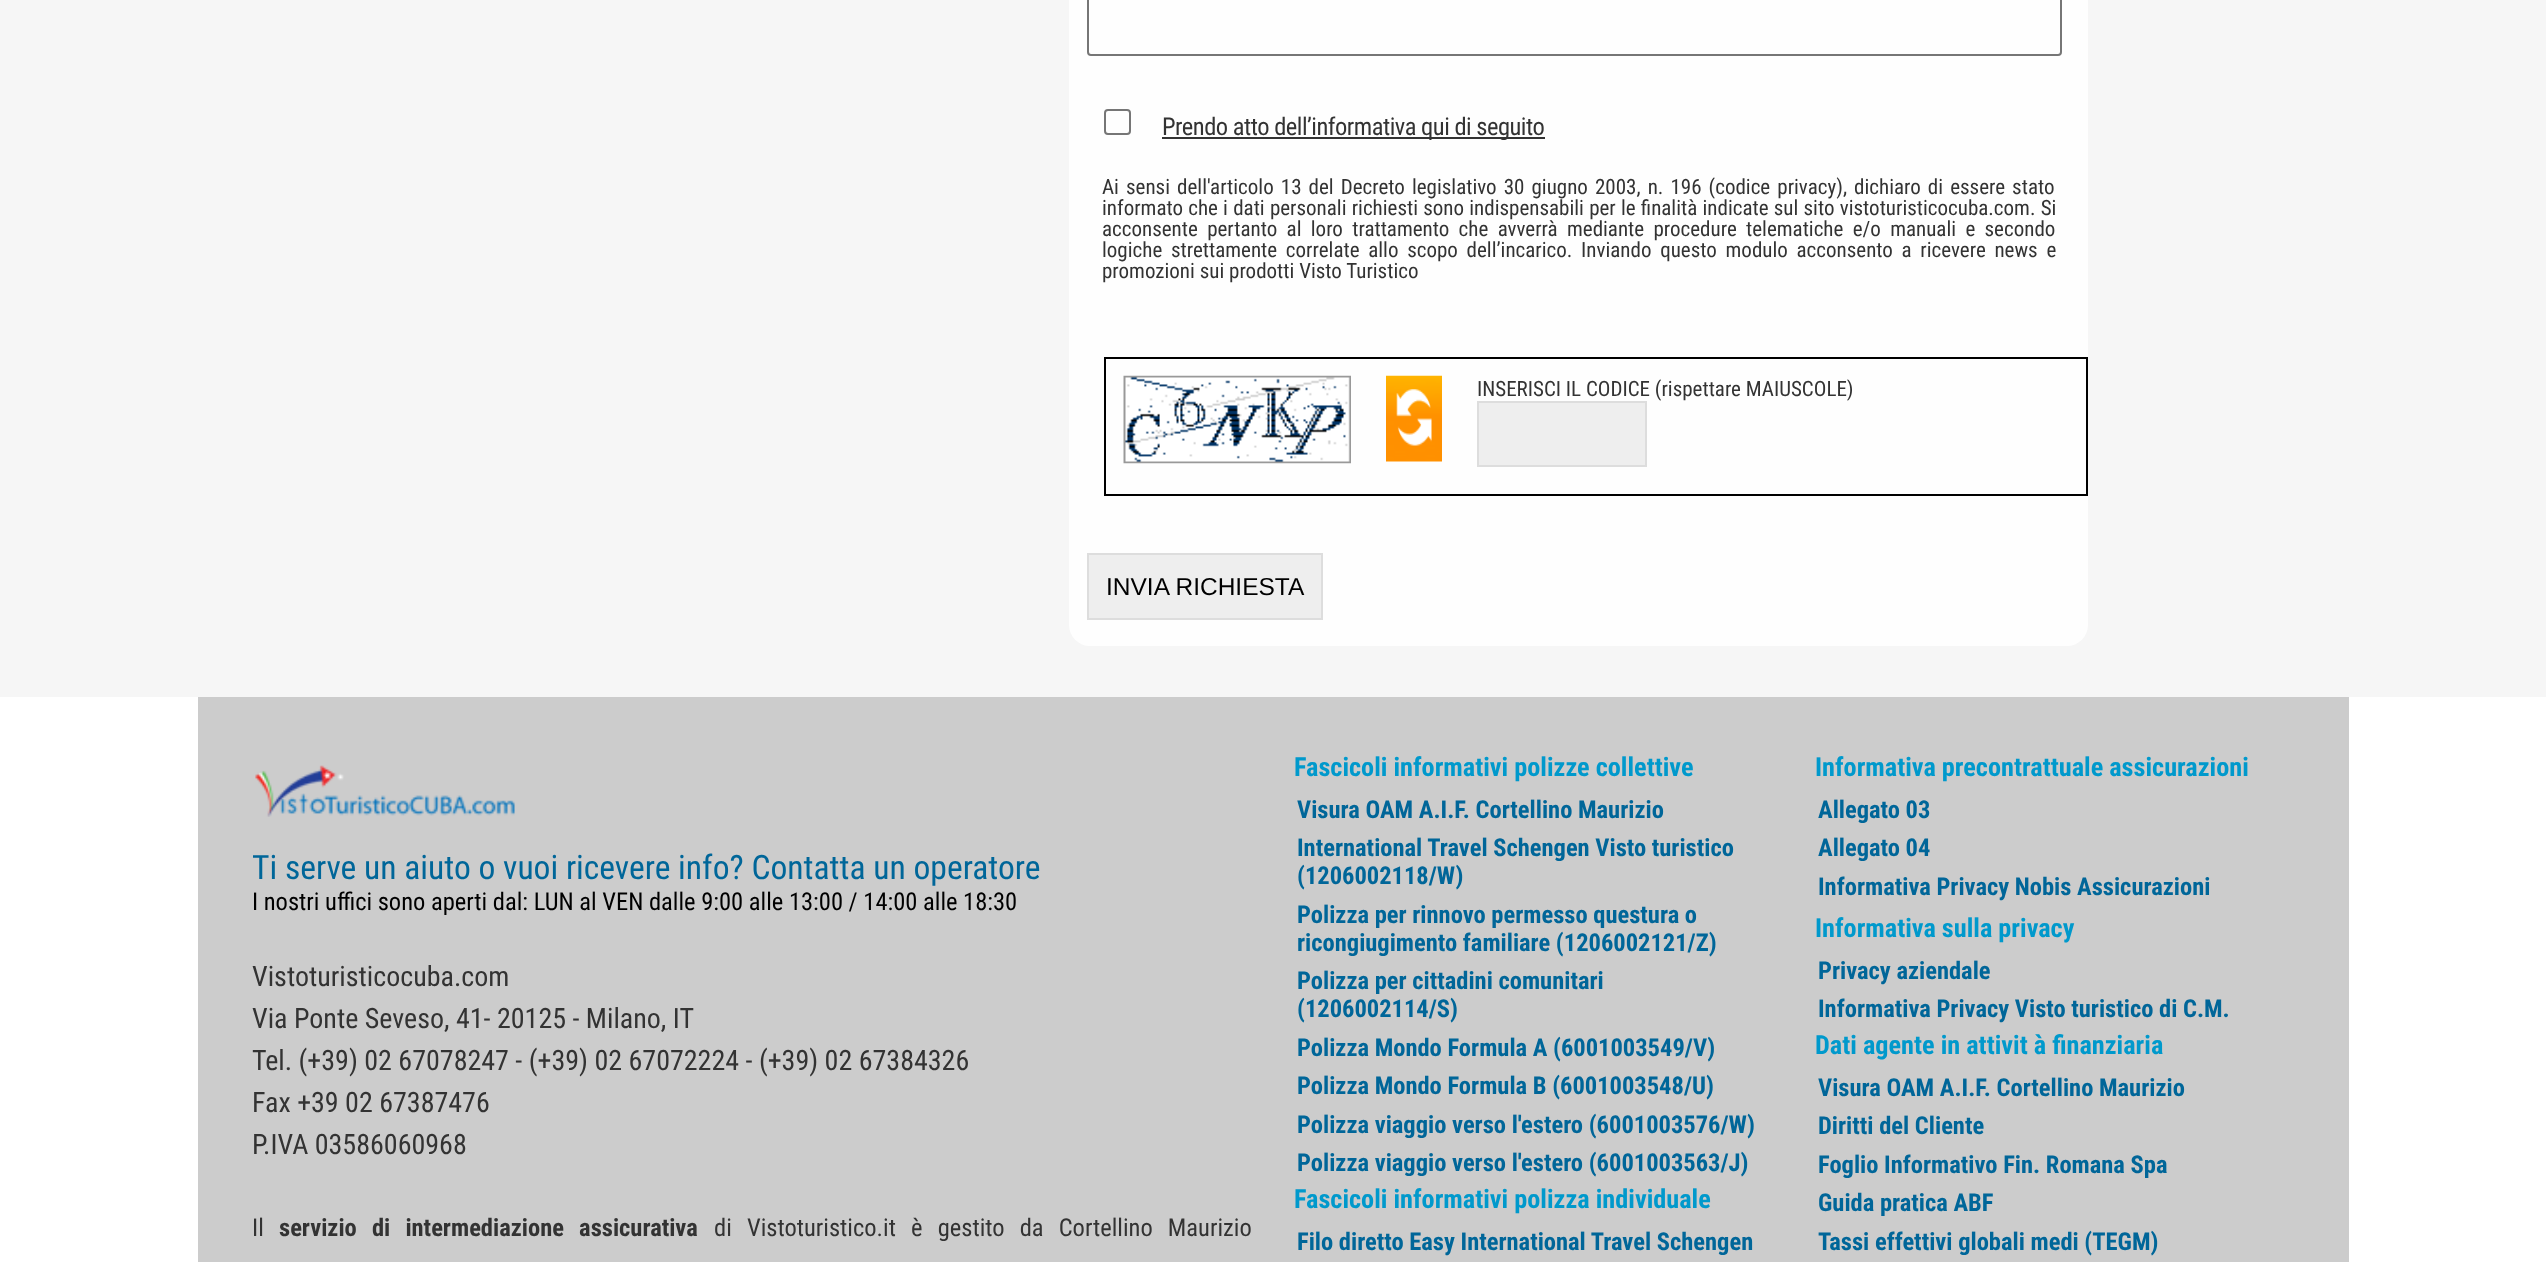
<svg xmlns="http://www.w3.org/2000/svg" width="2546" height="1262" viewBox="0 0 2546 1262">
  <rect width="100%" height="100%" fill="#ffffff"/>
  <rect x="0" y="0" width="2546" height="697" fill="#f6f6f6"/>
  <rect x="1069" y="-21" width="1019" height="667" rx="21" fill="#fefefe"/>
  <rect x="1088" y="-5" width="973" height="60" rx="3" fill="none" stroke="#767676" stroke-width="2"/>
  <rect x="1105" y="110" width="25" height="24" rx="3" fill="none" stroke="#767676" stroke-width="2"/>
  <rect x="1162" y="137" width="383" height="2" fill="#333333"/>
  <text x="1162" y="135" font-family="Roboto Condensed" font-size="24.5" letter-spacing="-0.5" fill="#333333">Prendo atto dell’informativa qui di seguito</text>
  <text x="1102" y="194" word-spacing="2.25" font-family="Roboto Condensed" font-size="21" fill="#333333">Ai sensi dell'articolo 13 del Decreto legislativo 30 giugno 2003, n. 196 (codice privacy), dichiaro di essere stato</text>
  <text x="1102" y="215" word-spacing="0.4" font-family="Roboto Condensed" font-size="21" fill="#333333">informato che i dati personali richiesti sono indispensabili per le finalità indicate sul sito vistoturisticocuba.com. Si</text>
  <text x="1102" y="236" word-spacing="4.5" font-family="Roboto Condensed" font-size="21" fill="#333333">acconsente pertanto al loro trattamento che avverrà mediante procedure telematiche e/o manuali e secondo</text>
  <text x="1102" y="257" word-spacing="3.9" font-family="Roboto Condensed" font-size="21" fill="#333333">logiche strettamente correlate allo scopo dell’incarico. Inviando questo modulo acconsento a ricevere news e</text>
  <text x="1102" y="278" font-family="Roboto Condensed" font-size="21" fill="#333333">promozioni sui prodotti Visto Turistico</text>
  <rect x="1104" y="357" width="984" height="2" fill="#000000"/>
  <rect x="2086" y="357" width="2" height="138" fill="#000000"/>
  <rect x="1104" y="494" width="984" height="2" fill="#000000"/>
  <rect x="1104" y="357" width="2" height="138" fill="#000000"/>
  <image x="1123" y="375" width="228" height="89" href="img1.png"/>
  <image x="1386" y="375" width="56" height="87" href="img2.png"/>
  <text x="1477" y="396" font-family="Roboto Condensed" font-size="21" fill="#333333">INSERISCI IL CODICE (rispettare MAIUSCOLE)</text>
  <rect x="1478" y="402" width="168" height="64" fill="#eeeeee" stroke="#dddddd" stroke-width="2"/>
  <rect x="1088" y="554" width="234" height="65" fill="#eeeeee" stroke="#dddddd" stroke-width="2"/>
  <text x="1106" y="595" font-family="Liberation Sans" font-size="24.5" fill="#000000">INVIA RICHIESTA</text>
  <rect x="198" y="697" width="2151" height="565" fill="#cccccc"/>
  <image x="255" y="765" width="260" height="52" href="img3.png"/>
  <text x="252" y="879" font-family="Roboto Condensed" font-size="33.6" fill="#006699">Ti serve un aiuto o vuoi ricevere info? Contatta un operatore</text>
  <text x="252" y="910" font-family="Roboto Condensed" font-size="24.5" fill="#000000">I nostri uffici sono aperti dal: LUN al VEN dalle 9:00 alle 13:00 / 14:00 alle 18:30</text>
  <text x="252" y="986" font-family="Roboto Condensed" font-size="28" fill="#333333">Vistoturisticocuba.com</text>
  <text x="252" y="1028" font-family="Roboto Condensed" font-size="28" fill="#333333">Via Ponte Seveso, 41- 20125 - Milano, IT</text>
  <text x="252" y="1070" font-family="Roboto Condensed" font-size="28" fill="#333333">Tel. (+39) 02 67078247 - (+39) 02 67072224 - (+39) 02 67384326</text>
  <text x="252" y="1112" font-family="Roboto Condensed" font-size="28" fill="#333333">Fax +39 02 67387476</text>
  <text x="252" y="1154" font-family="Roboto Condensed" font-size="28" fill="#333333">P.IVA 03586060968</text>
  <text x="252" y="1236" font-family="Roboto Condensed" font-size="24.5" fill="#333333">Il</text>
  <text x="279" y="1236" word-spacing="9.5" font-family="Roboto Condensed" font-size="24.5" font-weight="bold" fill="#333333">servizio di intermediazione assicurativa</text>
  <text x="714" y="1236" word-spacing="9.5" font-family="Roboto Condensed" font-size="24.5" fill="#333333">di Vistoturistico.it è gestito da Cortellino Maurizio</text>
  <text x="1294" y="776" font-family="Roboto Condensed" font-size="26.25" font-weight="bold" fill="#0099cc">Fascicoli informativi polizze collettive</text>
  <text x="1297" y="818" font-family="Roboto Condensed" font-size="24.5" font-weight="bold" fill="#006699">Visura OAM A.I.F. Cortellino Maurizio</text>
  <text x="1297" y="856" font-family="Roboto Condensed" font-size="24.5" font-weight="bold" fill="#006699">International Travel Schengen Visto turistico</text>
  <text x="1297" y="884" font-family="Roboto Condensed" font-size="24.5" font-weight="bold" fill="#006699">(1206002118/W)</text>
  <text x="1297" y="923" font-family="Roboto Condensed" font-size="24.5" font-weight="bold" fill="#006699">Polizza per rinnovo permesso questura o</text>
  <text x="1297" y="951" font-family="Roboto Condensed" font-size="24.5" font-weight="bold" fill="#006699">ricongiugimento familiare (1206002121/Z)</text>
  <text x="1297" y="989" font-family="Roboto Condensed" font-size="24.5" font-weight="bold" fill="#006699">Polizza per cittadini comunitari</text>
  <text x="1297" y="1017" font-family="Roboto Condensed" font-size="24.5" font-weight="bold" fill="#006699">(1206002114/S)</text>
  <text x="1297" y="1056" font-family="Roboto Condensed" font-size="24.5" font-weight="bold" fill="#006699">Polizza Mondo Formula A (6001003549/V)</text>
  <text x="1297" y="1094" font-family="Roboto Condensed" font-size="24.5" font-weight="bold" fill="#006699">Polizza Mondo Formula B (6001003548/U)</text>
  <text x="1297" y="1133" font-family="Roboto Condensed" font-size="24.5" font-weight="bold" fill="#006699">Polizza viaggio verso l'estero (6001003576/W)</text>
  <text x="1297" y="1171" font-family="Roboto Condensed" font-size="24.5" font-weight="bold" fill="#006699">Polizza viaggio verso l'estero (6001003563/J)</text>
  <text x="1294" y="1208" font-family="Roboto Condensed" font-size="26.25" font-weight="bold" fill="#0099cc">Fascicoli informativi polizza individuale</text>
  <text x="1297" y="1250" font-family="Roboto Condensed" font-size="24.5" font-weight="bold" fill="#006699">Filo diretto Easy International Travel Schengen</text>
  <text x="1815" y="776" font-family="Roboto Condensed" font-size="26.25" font-weight="bold" fill="#0099cc">Informativa precontrattuale assicurazioni</text>
  <text x="1818" y="818" font-family="Roboto Condensed" font-size="24.5" font-weight="bold" fill="#006699">Allegato 03</text>
  <text x="1818" y="856" font-family="Roboto Condensed" font-size="24.5" font-weight="bold" fill="#006699">Allegato 04</text>
  <text x="1818" y="895" font-family="Roboto Condensed" font-size="24.5" font-weight="bold" fill="#006699">Informativa Privacy Nobis Assicurazioni</text>
  <text x="1815" y="937" font-family="Roboto Condensed" font-size="26.25" font-weight="bold" fill="#0099cc">Informativa sulla privacy</text>
  <text x="1818" y="979" font-family="Roboto Condensed" font-size="24.5" font-weight="bold" fill="#006699">Privacy aziendale</text>
  <text x="1818" y="1017" font-family="Roboto Condensed" font-size="24.5" font-weight="bold" fill="#006699">Informativa Privacy Visto turistico di C.M.</text>
  <text x="1815" y="1054" font-family="Roboto Condensed" font-size="26.25" font-weight="bold" fill="#0099cc">Dati agente in attivit à finanziaria</text>
  <text x="1818" y="1096" font-family="Roboto Condensed" font-size="24.5" font-weight="bold" fill="#006699">Visura OAM A.I.F. Cortellino Maurizio</text>
  <text x="1818" y="1134" font-family="Roboto Condensed" font-size="24.5" font-weight="bold" fill="#006699">Diritti del Cliente</text>
  <text x="1818" y="1173" font-family="Roboto Condensed" font-size="24.5" font-weight="bold" fill="#006699">Foglio Informativo Fin. Romana Spa</text>
  <text x="1818" y="1211" font-family="Roboto Condensed" font-size="24.5" font-weight="bold" fill="#006699">Guida pratica ABF</text>
  <text x="1818" y="1250" font-family="Roboto Condensed" font-size="24.5" font-weight="bold" fill="#006699">Tassi effettivi globali medi (TEGM)</text>
</svg>
